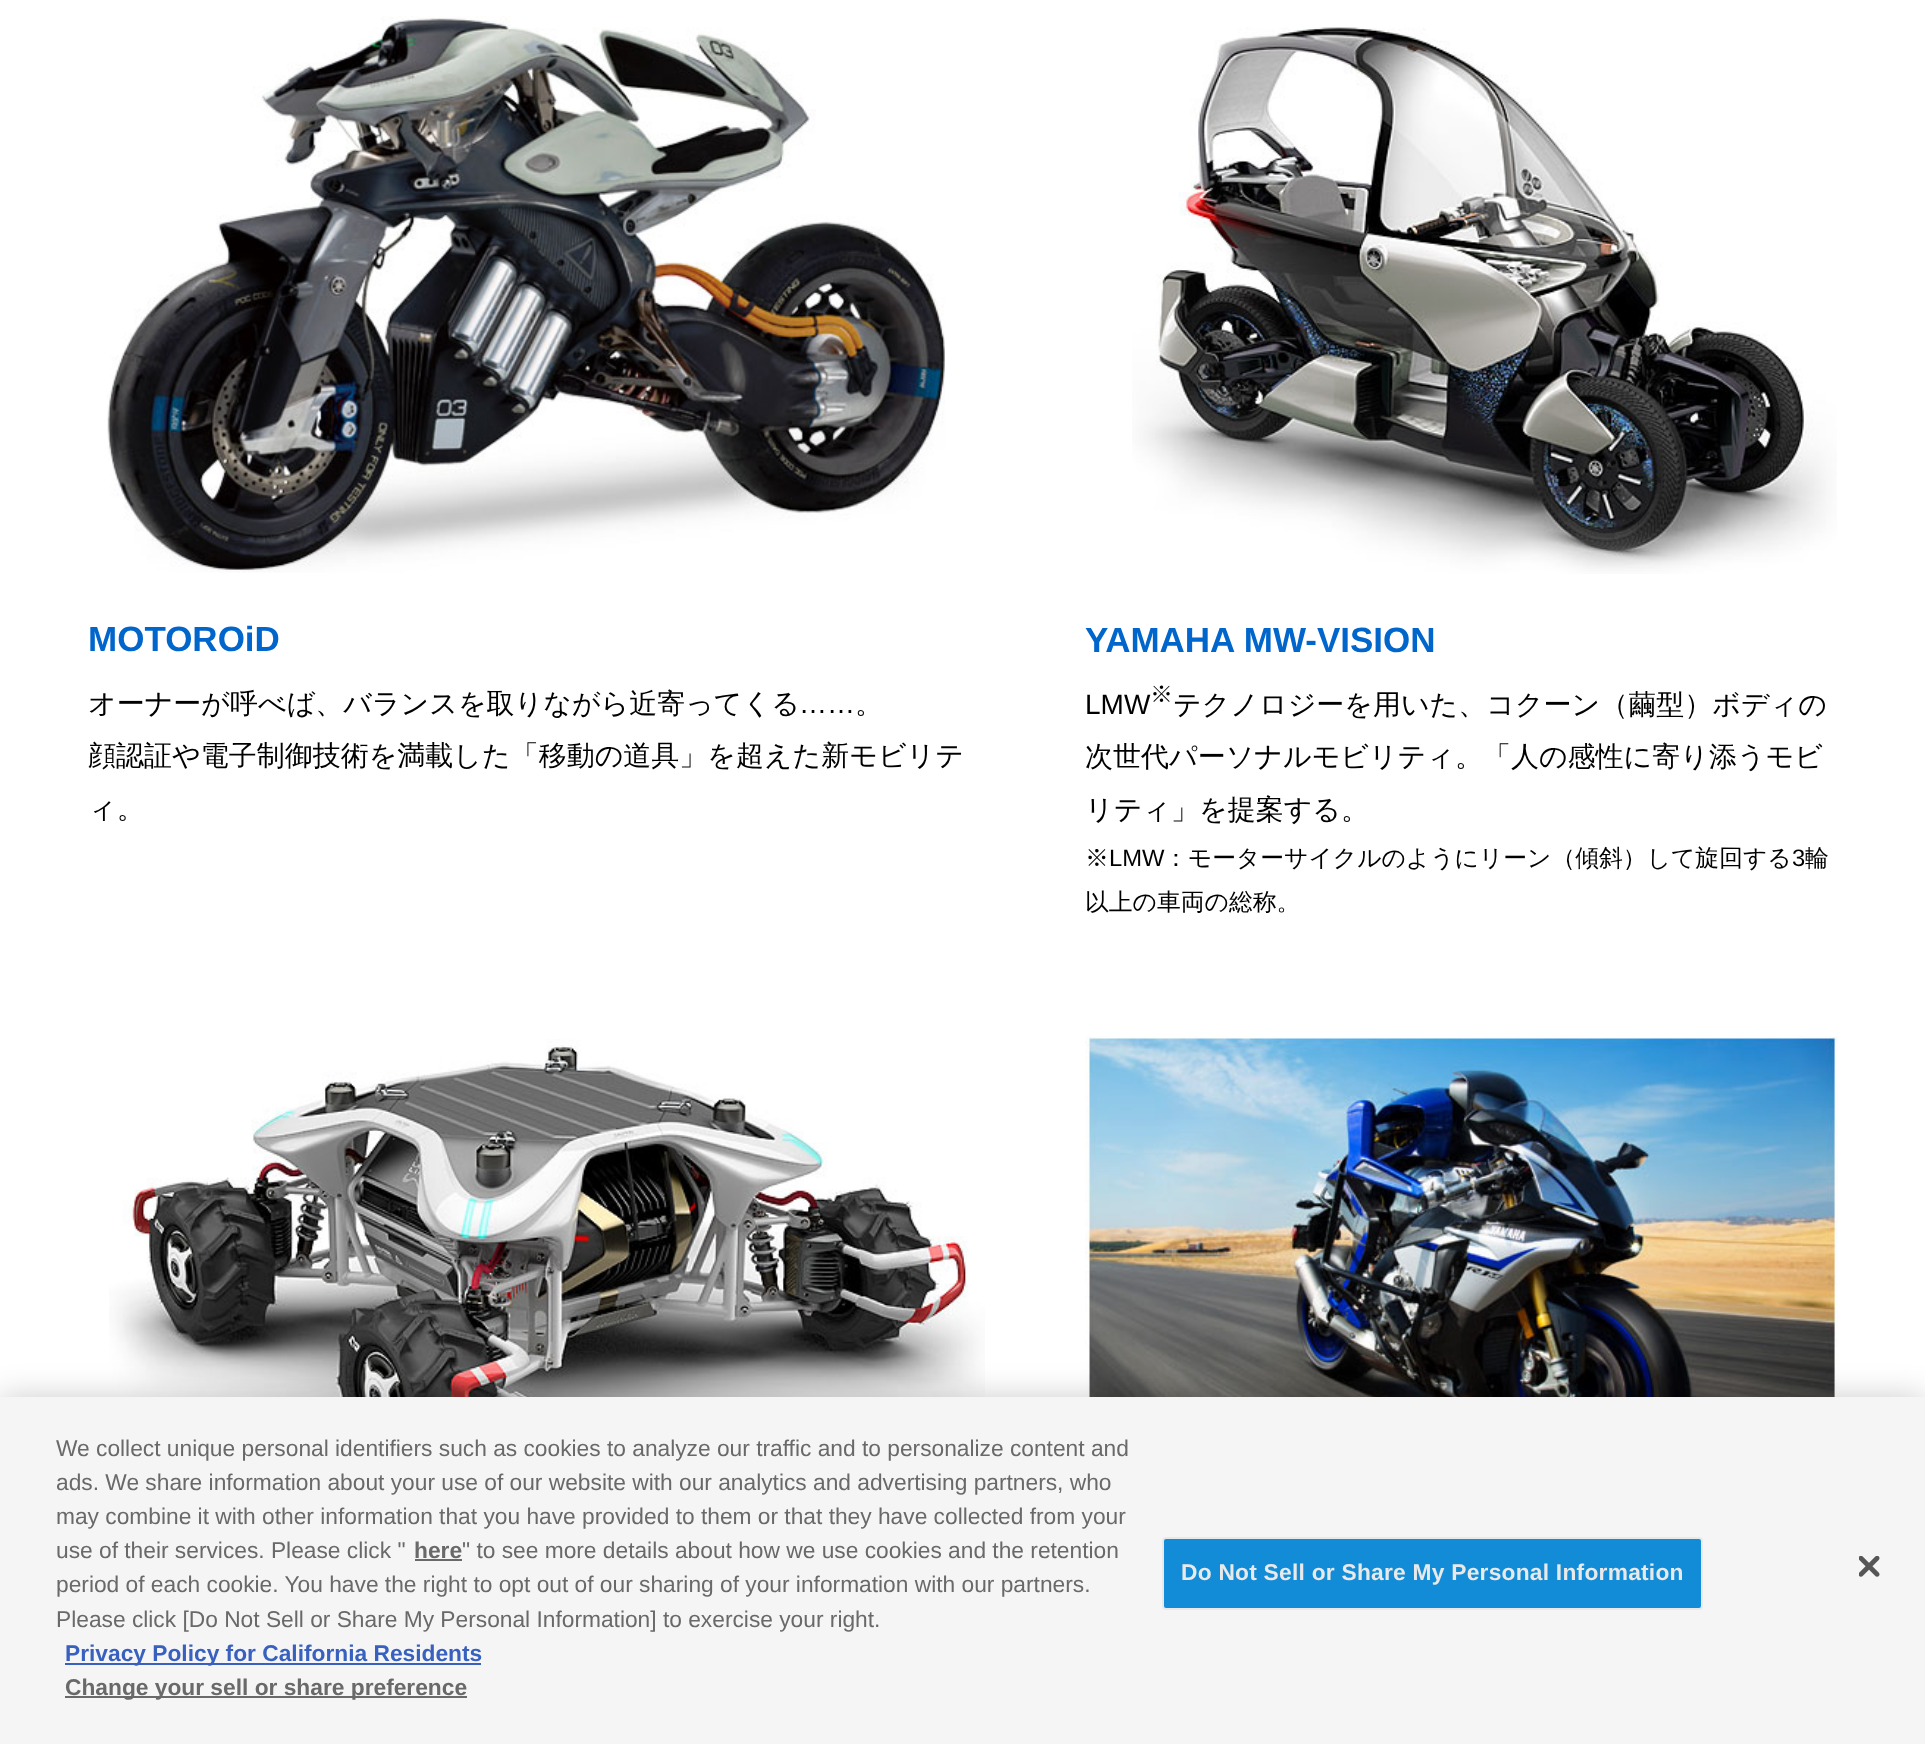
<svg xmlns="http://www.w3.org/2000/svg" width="1925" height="1744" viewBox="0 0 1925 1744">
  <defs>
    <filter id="blur1" x="-50%" y="-200%" width="200%" height="500%"><feGaussianBlur stdDeviation="16"/></filter>
  </defs>
  <rect width="100%" height="100%" fill="#ffffff"/>
  <image x="107" y="16" width="838" height="557" href="img1.png"/>
  <text x="88" y="651" font-family="Liberation Sans" font-size="35" font-weight="bold" fill="#0066cc">MOTOROiD</text>
  <text x="88" y="713" font-family="WenQuanYi Zen Hei" font-size="28" font-weight="500" fill="#000000">オーナーが呼べば、バランスを取りながら近寄ってくる</text>
  <text x="799" y="713" font-family="Liberation Sans" font-size="28" fill="#000000">……</text>
  <text x="855" y="713" font-family="WenQuanYi Zen Hei" font-size="28" font-weight="500" fill="#000000">。</text>
  <text x="88" y="765" font-family="WenQuanYi Zen Hei" font-size="28" font-weight="500" fill="#000000">顔認証や電子制御技術を満載した「移動の道具」を超えた新モビリテ</text>
  <text x="88" y="818" font-family="WenQuanYi Zen Hei" font-size="28" font-weight="500" fill="#000000">ィ。</text>
  <image x="1132" y="27" width="705" height="547" href="img2.png"/>
  <text x="1085" y="652" font-family="Liberation Sans" font-size="35" font-weight="bold" fill="#0066cc">YAMAHA MW-VISION</text>
  <text x="1085" y="714" font-family="Liberation Sans" font-size="28" fill="#000000">LMW</text>
  <text x="1150" y="702" font-family="WenQuanYi Zen Hei" font-size="23" font-weight="500" fill="#000000">※</text>
  <text x="1173" y="714" font-family="WenQuanYi Zen Hei" font-size="28" font-weight="500" fill="#000000">テクノロジーを用いた、コクーン（繭型）ボディの</text>
  <text x="1085" y="766" font-family="WenQuanYi Zen Hei" font-size="28" font-weight="500" fill="#000000">次世代パーソナルモビリティ。「人の感性に寄り添うモビ</text>
  <text x="1085" y="819" font-family="WenQuanYi Zen Hei" font-size="28" font-weight="500" fill="#000000">リティ」を提案する。</text>
  <text x="1085" y="866" font-family="WenQuanYi Zen Hei" font-size="23.8" font-weight="500" fill="#000000">※</text>
  <text x="1109" y="866" font-family="Liberation Sans" font-size="23.8" fill="#000000">LMW</text>
  <text x="1164" y="866" font-family="WenQuanYi Zen Hei" font-size="23.8" font-weight="500" fill="#000000">：モーターサイクルのようにリーン（傾斜）して旋回する</text>
  <text x="1792" y="866" font-family="Liberation Sans" font-size="23.8" fill="#000000">3</text>
  <text x="1805" y="866" font-family="WenQuanYi Zen Hei" font-size="23.8" font-weight="500" fill="#000000">輪</text>
  <text x="1085" y="910" font-family="WenQuanYi Zen Hei" font-size="23.8" font-weight="500" fill="#000000">以上の車両の総称。</text>
  <image x="109" y="1039" width="876" height="358" href="img3.png"/>
  <image x="1085" y="1036" width="753" height="361" href="img4.png"/>
  <rect x="0" y="1397" width="1925" height="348" fill="#000000" fill-opacity="0.2" filter="url(#blur1)"/>
  <rect x="0" y="1397" width="1925" height="347" fill="#f5f5f5"/>
  <text x="56" y="1456" font-family="Liberation Sans" font-size="22.75" fill="#696969">We collect unique personal identifiers such as cookies to analyze our traffic and to personalize content and</text>
  <text x="56" y="1490" font-family="Liberation Sans" font-size="22.75" fill="#696969">ads. We share information about your use of our website with our analytics and advertising partners, who</text>
  <text x="56" y="1524" font-family="Liberation Sans" font-size="22.75" fill="#696969">may combine it with other information that you have provided to them or that they have collected from your</text>
  <text x="56" y="1558" font-family="Liberation Sans" font-size="22.75" fill="#696969">use of their services. Please click "</text>
  <text x="414" y="1558" font-family="Liberation Sans" font-size="22.75" font-weight="bold" fill="#696969">here</text>
  <rect x="415" y="1559" width="47" height="2" fill="#696969"/>
  <text x="462" y="1558" font-family="Liberation Sans" font-size="22.75" fill="#696969">" to see more details about how we use cookies and the retention</text>
  <text x="56" y="1592" font-family="Liberation Sans" font-size="22.75" fill="#696969">period of each cookie. You have the right to opt out of our sharing of your information with our partners.</text>
  <text x="56" y="1627" font-family="Liberation Sans" font-size="22.75" fill="#696969">Please click [Do Not Sell or Share My Personal Information] to exercise your right.</text>
  <rect x="65" y="1663" width="416" height="2" fill="#3860be"/>
  <text x="65" y="1661" font-family="Liberation Sans" font-size="22.75" font-weight="bold" fill="#3860be">Privacy Policy for California Residents</text>
  <rect x="65" y="1696" width="402" height="2" fill="#696969"/>
  <text x="65" y="1695" font-family="Liberation Sans" font-size="22.75" font-weight="bold" fill="#696969">Change your sell or share preference</text>
  <rect x="1163" y="1538" width="539" height="71" rx="3" fill="#128cd6" stroke="#e9e9e9" stroke-width="2"/>
  <text x="1181" y="1580" font-family="Liberation Sans" font-size="22.75" font-weight="bold" letter-spacing="0.25" fill="#e9e9e9">Do Not Sell or Share My Personal Information</text>
  <image x="1859" y="1556" width="21" height="21" href="img5.png"/>
</svg>
